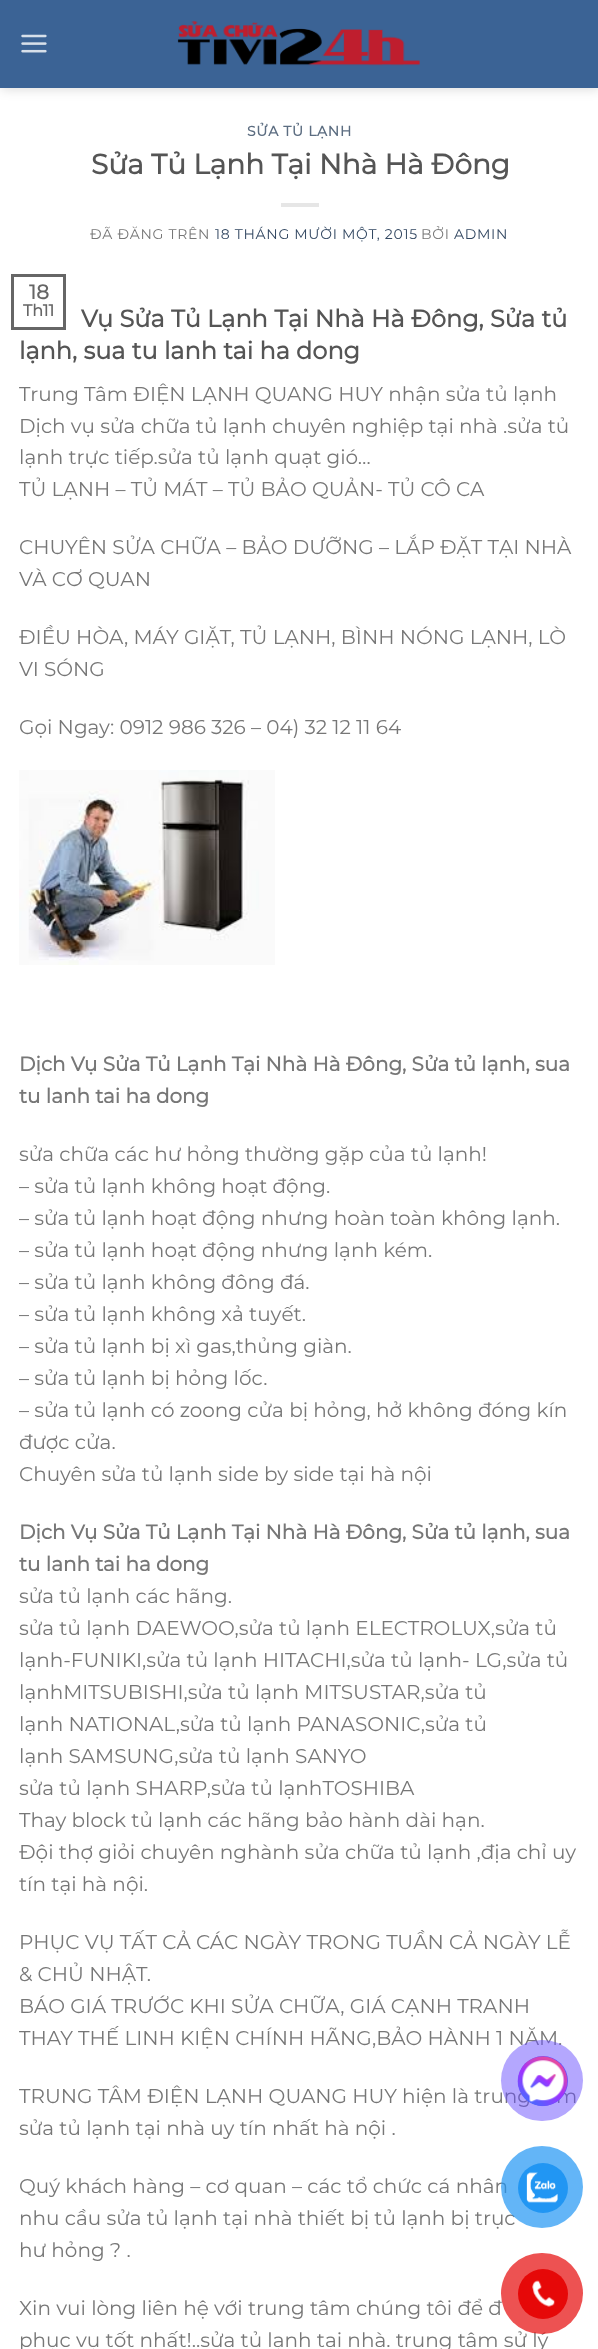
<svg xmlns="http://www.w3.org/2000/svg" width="598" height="2349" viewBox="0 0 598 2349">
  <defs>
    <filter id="blur1" x="-50%" y="-200%" width="200%" height="500%"><feGaussianBlur stdDeviation="6"/></filter>
  </defs>
  <rect width="100%" height="100%" fill="#ffffff"/>
  <rect x="1" y="1" width="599" height="88" fill="#000000" fill-opacity="0.15" filter="url(#blur1)"/>
  <rect x="0" y="0" width="598" height="88" fill="#3b6395"/>
  <image x="21" y="34" width="26" height="19" href="img1.png"/>
  <image x="177" y="21" width="243" height="45" href="img2.png"/>
  <text x="247" y="136" font-family="Montserrat" font-size="14" font-weight="bold" letter-spacing="0.7" fill="#5c6d81">SỬA TỦ LẠNH</text>
  <text x="91" y="174" font-family="Montserrat" font-size="28" font-weight="bold" fill="#555555">Sửa Tủ Lạnh Tại Nhà Hà Đông</text>
  <rect x="281" y="203" width="38" height="4" fill="#e6e6e6"/>
  <text x="90" y="239" font-family="Montserrat" font-size="14" font-weight="100" letter-spacing="0.7" fill="#777777">ĐÃ ĐĂNG TRÊN</text>
  <text x="215" y="239" font-family="Montserrat" font-size="14" font-weight="100" letter-spacing="0.7" fill="#334862">18 THÁNG MƯỜI MỘT, 2015</text>
  <text x="421" y="239" font-family="Montserrat" font-size="14" font-weight="100" letter-spacing="0.7" fill="#777777">BỞI</text>
  <text x="454" y="239" font-family="Montserrat" font-size="14" font-weight="100" letter-spacing="0.7" fill="#334862">ADMIN</text>
  <rect x="12.5" y="275.5" width="52" height="53" fill="none" stroke="#666666" stroke-width="3"/>
  <text x="29" y="299" font-family="Montserrat" font-size="20" font-weight="bold" fill="#666666">18</text>
  <text x="23" y="316" font-family="Montserrat" font-size="16" font-weight="bold" fill="#666666">Th11</text>
  <text x="81" y="327" font-family="Montserrat" font-size="24" font-weight="bold" fill="#555555">Vụ Sửa Tủ Lạnh Tại Nhà Hà Đông, Sửa tủ</text>
  <text x="19" y="359" font-family="Montserrat" font-size="24" font-weight="bold" fill="#555555">lạnh, sua tu lanh tai ha dong</text>
  <text x="19" y="401" font-family="Montserrat" font-size="20" font-weight="100" fill="#777777">Trung Tâm ĐIỆN LẠNH QUANG HUY nhận sửa tủ lạnh</text>
  <text x="19" y="433" font-family="Montserrat" font-size="20" font-weight="100" fill="#777777">Dịch vụ sửa chữa tủ lạnh chuyên nghiệp tại nhà .sửa tủ</text>
  <text x="19" y="464" font-family="Montserrat" font-size="20" font-weight="100" fill="#777777">lạnh trực tiếp.sửa tủ lạnh quạt gió…</text>
  <text x="19" y="496" font-family="Montserrat" font-size="20" font-weight="100" fill="#777777">TỦ LẠNH – TỦ MÁT – TỦ BẢO QUẢN- TỦ CÔ CA</text>
  <text x="19" y="554" font-family="Montserrat" font-size="20" font-weight="100" fill="#777777">CHUYÊN SỬA CHỮA – BẢO DƯỠNG – LẮP ĐẶT TẠI NHÀ</text>
  <text x="19" y="586" font-family="Montserrat" font-size="20" font-weight="100" fill="#777777">VÀ CƠ QUAN</text>
  <text x="19" y="644" font-family="Montserrat" font-size="20" font-weight="100" fill="#777777">ĐIỀU HÒA, MÁY GIẶT, TỦ LẠNH, BÌNH NÓNG LẠNH, LÒ</text>
  <text x="19" y="676" font-family="Montserrat" font-size="20" font-weight="100" fill="#777777">VI SÓNG</text>
  <text x="19" y="734" font-family="Montserrat" font-size="20" font-weight="100" fill="#777777">Gọi Ngay: 0912 986 326 – 04) 32 12 11 64</text>
  <image x="19" y="770" width="256" height="195" href="img3.png"/>
  <text x="19" y="1071" font-family="Montserrat" font-size="20" font-weight="bold" fill="#777777">Dịch Vụ Sửa Tủ Lạnh Tại Nhà Hà Đông, Sửa tủ lạnh, sua</text>
  <text x="19" y="1103" font-family="Montserrat" font-size="20" font-weight="bold" fill="#777777">tu lanh tai ha dong</text>
  <text x="19" y="1161" font-family="Montserrat" font-size="20" font-weight="100" fill="#777777">sửa chữa các hư hỏng thường gặp của tủ lạnh!</text>
  <text x="19" y="1193" font-family="Montserrat" font-size="20" font-weight="100" fill="#777777">– sửa tủ lạnh không hoạt động.</text>
  <text x="19" y="1225" font-family="Montserrat" font-size="20" font-weight="100" fill="#777777">– sửa tủ lạnh hoạt động nhưng hoàn toàn không lạnh.</text>
  <text x="19" y="1257" font-family="Montserrat" font-size="20" font-weight="100" fill="#777777">– sửa tủ lạnh hoạt động nhưng lạnh kém.</text>
  <text x="19" y="1289" font-family="Montserrat" font-size="20" font-weight="100" fill="#777777">– sửa tủ lạnh không đông đá.</text>
  <text x="19" y="1321" font-family="Montserrat" font-size="20" font-weight="100" fill="#777777">– sửa tủ lạnh không xả tuyết.</text>
  <text x="19" y="1353" font-family="Montserrat" font-size="20" font-weight="100" fill="#777777">– sửa tủ lạnh bị xì gas,thủng giàn.</text>
  <text x="19" y="1385" font-family="Montserrat" font-size="20" font-weight="100" fill="#777777">– sửa tủ lạnh bị hỏng lốc.</text>
  <text x="19" y="1417" font-family="Montserrat" font-size="20" font-weight="100" fill="#777777">– sửa tủ lạnh có zoong cửa bị hỏng, hở không đóng kín</text>
  <text x="19" y="1449" font-family="Montserrat" font-size="20" font-weight="100" fill="#777777">được cửa.</text>
  <text x="19" y="1481" font-family="Montserrat" font-size="20" font-weight="100" fill="#777777">Chuyên sửa tủ lạnh side by side tại hà nội</text>
  <text x="19" y="1539" font-family="Montserrat" font-size="20" font-weight="bold" fill="#777777">Dịch Vụ Sửa Tủ Lạnh Tại Nhà Hà Đông, Sửa tủ lạnh, sua</text>
  <text x="19" y="1571" font-family="Montserrat" font-size="20" font-weight="bold" fill="#777777">tu lanh tai ha dong</text>
  <text x="19" y="1603" font-family="Montserrat" font-size="20" font-weight="100" fill="#777777">sửa tủ lạnh các hãng.</text>
  <text x="19" y="1635" font-family="Montserrat" font-size="20" font-weight="100" fill="#777777">sửa tủ lạnh DAEWOO,sửa tủ lạnh ELECTROLUX,sửa tủ</text>
  <text x="19" y="1667" font-family="Montserrat" font-size="20" font-weight="100" fill="#777777">lạnh-FUNIKI,sửa tủ lạnh HITACHI,sửa tủ lạnh- LG,sửa tủ</text>
  <text x="19" y="1699" font-family="Montserrat" font-size="20" font-weight="100" fill="#777777">lạnhMITSUBISHI,sửa tủ lạnh MITSUSTAR,sửa tủ</text>
  <text x="19" y="1731" font-family="Montserrat" font-size="20" font-weight="100" fill="#777777">lạnh NATIONAL,sửa tủ lạnh PANASONIC,sửa tủ</text>
  <text x="19" y="1763" font-family="Montserrat" font-size="20" font-weight="100" fill="#777777">lạnh SAMSUNG,sửa tủ lạnh SANYO</text>
  <text x="19" y="1795" font-family="Montserrat" font-size="20" font-weight="100" fill="#777777">sửa tủ lạnh SHARP,sửa tủ lạnhTOSHIBA</text>
  <text x="19" y="1827" font-family="Montserrat" font-size="20" font-weight="100" fill="#777777">Thay block tủ lạnh các hãng bảo hành dài hạn.</text>
  <text x="19" y="1859" font-family="Montserrat" font-size="20" font-weight="100" fill="#777777">Đội thợ giỏi chuyên nghành sửa chữa tủ lạnh ,địa chỉ uy</text>
  <text x="19" y="1891" font-family="Montserrat" font-size="20" font-weight="100" fill="#777777">tín tại hà nội.</text>
  <text x="19" y="1949" font-family="Montserrat" font-size="20" font-weight="100" fill="#777777">PHỤC VỤ TẤT CẢ CÁC NGÀY TRONG TUẦN CẢ NGÀY LỄ</text>
  <text x="19" y="1981" font-family="Montserrat" font-size="20" font-weight="100" fill="#777777">&amp; CHỦ NHẬT.</text>
  <text x="19" y="2013" font-family="Montserrat" font-size="20" font-weight="100" fill="#777777">BÁO GIÁ TRƯỚC KHI SỬA CHỮA, GIÁ CẠNH TRANH</text>
  <text x="19" y="2045" font-family="Montserrat" font-size="20" font-weight="100" fill="#777777">THAY THẾ LINH KIỆN CHÍNH HÃNG,BẢO HÀNH 1 NĂM.</text>
  <text x="19" y="2103" font-family="Montserrat" font-size="20" font-weight="100" fill="#777777">TRUNG TÂM ĐIỆN LẠNH QUANG HUY hiện là trung</text>
  <text x="556" y="2103" font-family="Montserrat" font-size="20" font-weight="100" fill="#777777">m</text>
  <text x="19" y="2135" font-family="Montserrat" font-size="20" font-weight="100" fill="#777777">sửa tủ lạnh tại nhà uy tín nhất hà nội .</text>
  <text x="19" y="2193" font-family="Montserrat" font-size="20" font-weight="100" fill="#777777">Quý khách hàng – cơ quan – các tổ chức cá nhân</text>
  <text x="19" y="2225" font-family="Montserrat" font-size="20" font-weight="100" fill="#777777">nhu cầu sửa tủ lạnh tại nhà thiết bị tủ lạnh bị trục</text>
  <text x="19" y="2257" font-family="Montserrat" font-size="20" font-weight="100" fill="#777777">hư hỏng ? .</text>
  <text x="19" y="2315" font-family="Montserrat" font-size="20" font-weight="100" fill="#777777">Xin vui lòng liên hệ với trung tâm chúng tôi để đ</text>
  <text x="19" y="2347" font-family="Montserrat" font-size="20" font-weight="100" fill="#777777">phục vụ tốt nhất!..sửa tủ lạnh tại nhà. trung tâm sử lý</text>
  <rect x="501" y="2040" width="82" height="81" rx="40.5" fill="#6a4ffe" fill-opacity="0.5"/>
  <circle cx="543" cy="2081" r="25" fill="#6a4ffe"/>
  <image x="517" y="2056" width="51" height="51" href="img4.png"/>
  <circle cx="542" cy="2187" r="41" fill="#2196f3" fill-opacity="0.7"/>
  <circle cx="543" cy="2188" r="25" fill="#2196f3"/>
  <image x="526" y="2172" width="32" height="31" href="img5.png"/>
  <rect x="501" y="2253" width="82" height="81" rx="40.5" fill="#e60808" fill-opacity="0.7"/>
  <circle cx="543" cy="2294" r="25" fill="#e60808"/>
  <image x="532" y="2280" width="23" height="27" href="img6.png"/>
</svg>
